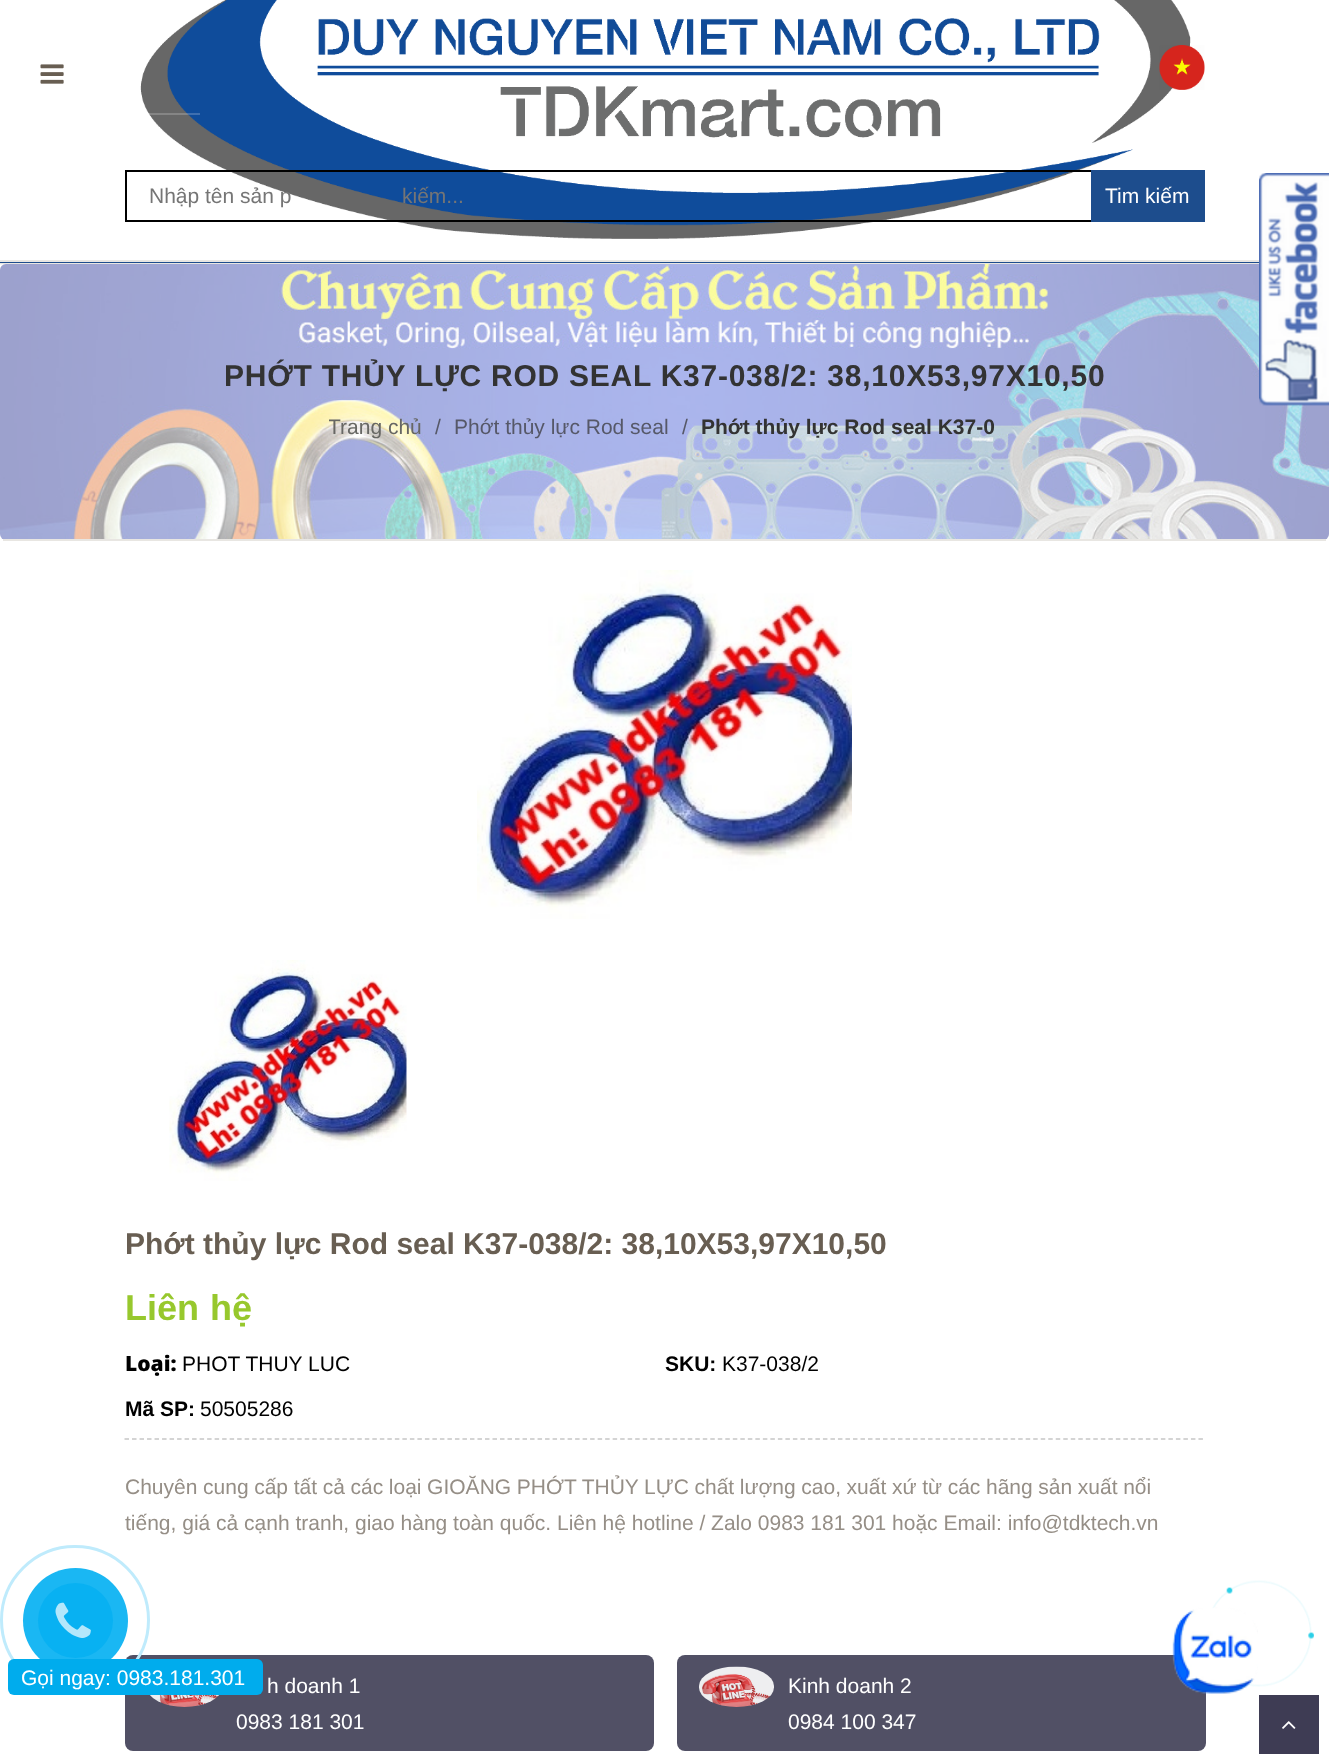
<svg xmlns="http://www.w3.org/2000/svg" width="1329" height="1754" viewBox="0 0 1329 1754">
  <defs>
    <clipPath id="clip1"><rect x="329" y="411" width="672" height="30"/></clipPath>
  </defs>
  <rect width="100%" height="100%" fill="#ffffff"/>
  <image x="140" y="0" width="1051" height="239" href="img1.png"/>
  <rect x="148" y="113" width="52" height="2" fill="#ffffff" fill-opacity="0.2"/>
  <image x="40" y="64" width="24" height="20" href="img2.png"/>
  <image x="1159" y="45" width="46" height="45" href="img3.png"/>
  <rect x="126" y="171" width="1078" height="50" fill="none" stroke="#000000" stroke-width="2"/>
  <text x="149" y="203" font-family="Liberation Sans" font-size="21" fill="#757575">Nhập tên sản p</text>
  <text x="402" y="203" font-family="Liberation Sans" font-size="21" fill="#757575">kiếm...</text>
  <rect x="1091" y="170" width="114" height="52" fill="#1d4d8d"/>
  <text x="1105" y="203" font-family="Liberation Sans" font-size="21" fill="#ffffff">Tim kiếm</text>
  <rect x="0" y="262" width="1259" height="1" fill="#1d4d8d"/>
  <rect x="0" y="260" width="1259" height="2" fill="#e8e6e2"/>
  <rect x="0" y="263" width="1259" height="2" fill="#e8e6e2"/>
  <image x="0" y="264" width="1329" height="275" href="img5.png"/>
  <rect x="0" y="264" width="1329" height="275" fill="#ffffff" fill-opacity="0.6"/>
  <image x="1259" y="173" width="70" height="233" href="img4.png"/>
  <rect x="3" y="539" width="1323" height="2" fill="#e8e6e2"/>
  <text x="224" y="386" font-family="Liberation Sans" font-size="30" font-weight="bold" letter-spacing="0.75" fill="#333333">PHỚT THỦY LỰC ROD SEAL K37-038/2: 38,10X53,97X10,50</text>
  <g clip-path="url(#clip1)">
    <text x="328" y="434" font-family="Liberation Sans" font-size="21" fill="#676764">Trang chủ</text>
  </g>
  <text x="435" y="434" font-family="Liberation Sans" font-size="21" fill="#565868">/</text>
  <text x="454" y="434" font-family="Liberation Sans" font-size="21" fill="#565868">Phớt thủy lực Rod seal</text>
  <text x="682" y="434" font-family="Liberation Sans" font-size="21" fill="#565868">/</text>
  <text x="701" y="434" font-family="Liberation Sans" font-size="21" font-weight="bold" fill="#333333">Phớt thủy lực Rod seal K37-0</text>
  <image x="477" y="570" width="375" height="349" href="img6.png"/>
  <image x="169" y="960" width="238" height="221" href="img7.png"/>
  <text x="125" y="1254" font-family="Liberation Sans" font-size="30" font-weight="bold" fill="#685e52">Phớt thủy lực Rod seal K37-038/2: 38,10X53,97X10,50</text>
  <text x="125" y="1320" word-spacing="1" font-family="Liberation Sans" font-size="36" font-weight="bold" fill="#97c82d">Liên hệ</text>
  <text x="125" y="1371" font-family="Open Sans" font-size="21" font-weight="800" fill="#000000">Loại:</text>
  <text x="182" y="1371" font-family="Liberation Sans" font-size="21" fill="#000000">PHOT THUY LUC</text>
  <text x="665" y="1371" font-family="Liberation Sans" font-size="21" font-weight="bold" fill="#000000">SKU:</text>
  <text x="722" y="1371" font-family="Liberation Sans" font-size="21" fill="#000000">K37-038/2</text>
  <text x="125" y="1416" font-family="Liberation Sans" font-size="21" font-weight="bold" fill="#000000">Mã SP:</text>
  <text x="200" y="1416" font-family="Liberation Sans" font-size="21" fill="#000000">50505286</text>
  <path d="M124.5 1439H1204.5" fill="none" stroke="#c6c6c6" stroke-width="1.5" stroke-dasharray="4.5 3.01"/>
  <text x="125" y="1494" word-spacing="-0.2" font-family="Liberation Sans" font-size="21" fill="#958e86">Chuyên cung cấp tất cả các loại GIOĂNG PHỚT THỦY LỰC chất lượng cao, xuất xứ từ các hãng sản xuất nổi</text>
  <text x="125" y="1530" font-family="Liberation Sans" font-size="21" fill="#958e86">tiếng, giá cả cạnh tranh, giao hàng toàn quốc. Liên hệ hotline / Zalo 0983 181 301 hoặc Email: info@tdktech.vn</text>
  <rect x="125" y="1655" width="529" height="96" rx="8" fill="#515065"/>
  <image x="150" y="1695" width="69" height="12" href="img8.png"/>
  <text x="267" y="1693" font-family="Liberation Sans" font-size="21" fill="#ffffff">h doanh 1</text>
  <text x="236" y="1729" font-family="Liberation Sans" font-size="21" fill="#ffffff">0983 181 301</text>
  <rect x="677" y="1655" width="529" height="96" rx="8" fill="#515065"/>
  <image x="699" y="1666" width="75" height="41" href="img9.png"/>
  <text x="788" y="1693" font-family="Liberation Sans" font-size="21" fill="#ffffff">Kinh doanh 2</text>
  <text x="788" y="1729" font-family="Liberation Sans" font-size="21" fill="#ffffff">0984 100 347</text>
  <image x="1212" y="1580" width="102" height="107" href="img10.png"/>
  <image x="1172" y="1607" width="86" height="87" href="img11.png"/>
  <circle cx="75" cy="1620" r="73.5" fill="none" stroke="#bfebfc" stroke-width="3"/>
  <circle cx="75.5" cy="1620.5" r="52.5" fill="#1ab7f3"/>
  <circle cx="75.5" cy="1620.5" r="37.5" fill="#08b1f2"/>
  <image x="55" y="1602" width="36" height="36" href="img12.png"/>
  <rect x="8" y="1659" width="255" height="36" rx="6" fill="#00aced"/>
  <text x="21" y="1685" font-family="Liberation Sans" font-size="21" fill="#ffffff">Gọi ngay: 0983.181.301</text>
  <rect x="1259" y="1695" width="60" height="59" fill="#3e3c54"/>
  <image x="1282" y="1721" width="14" height="8" href="img13.png"/>
</svg>
